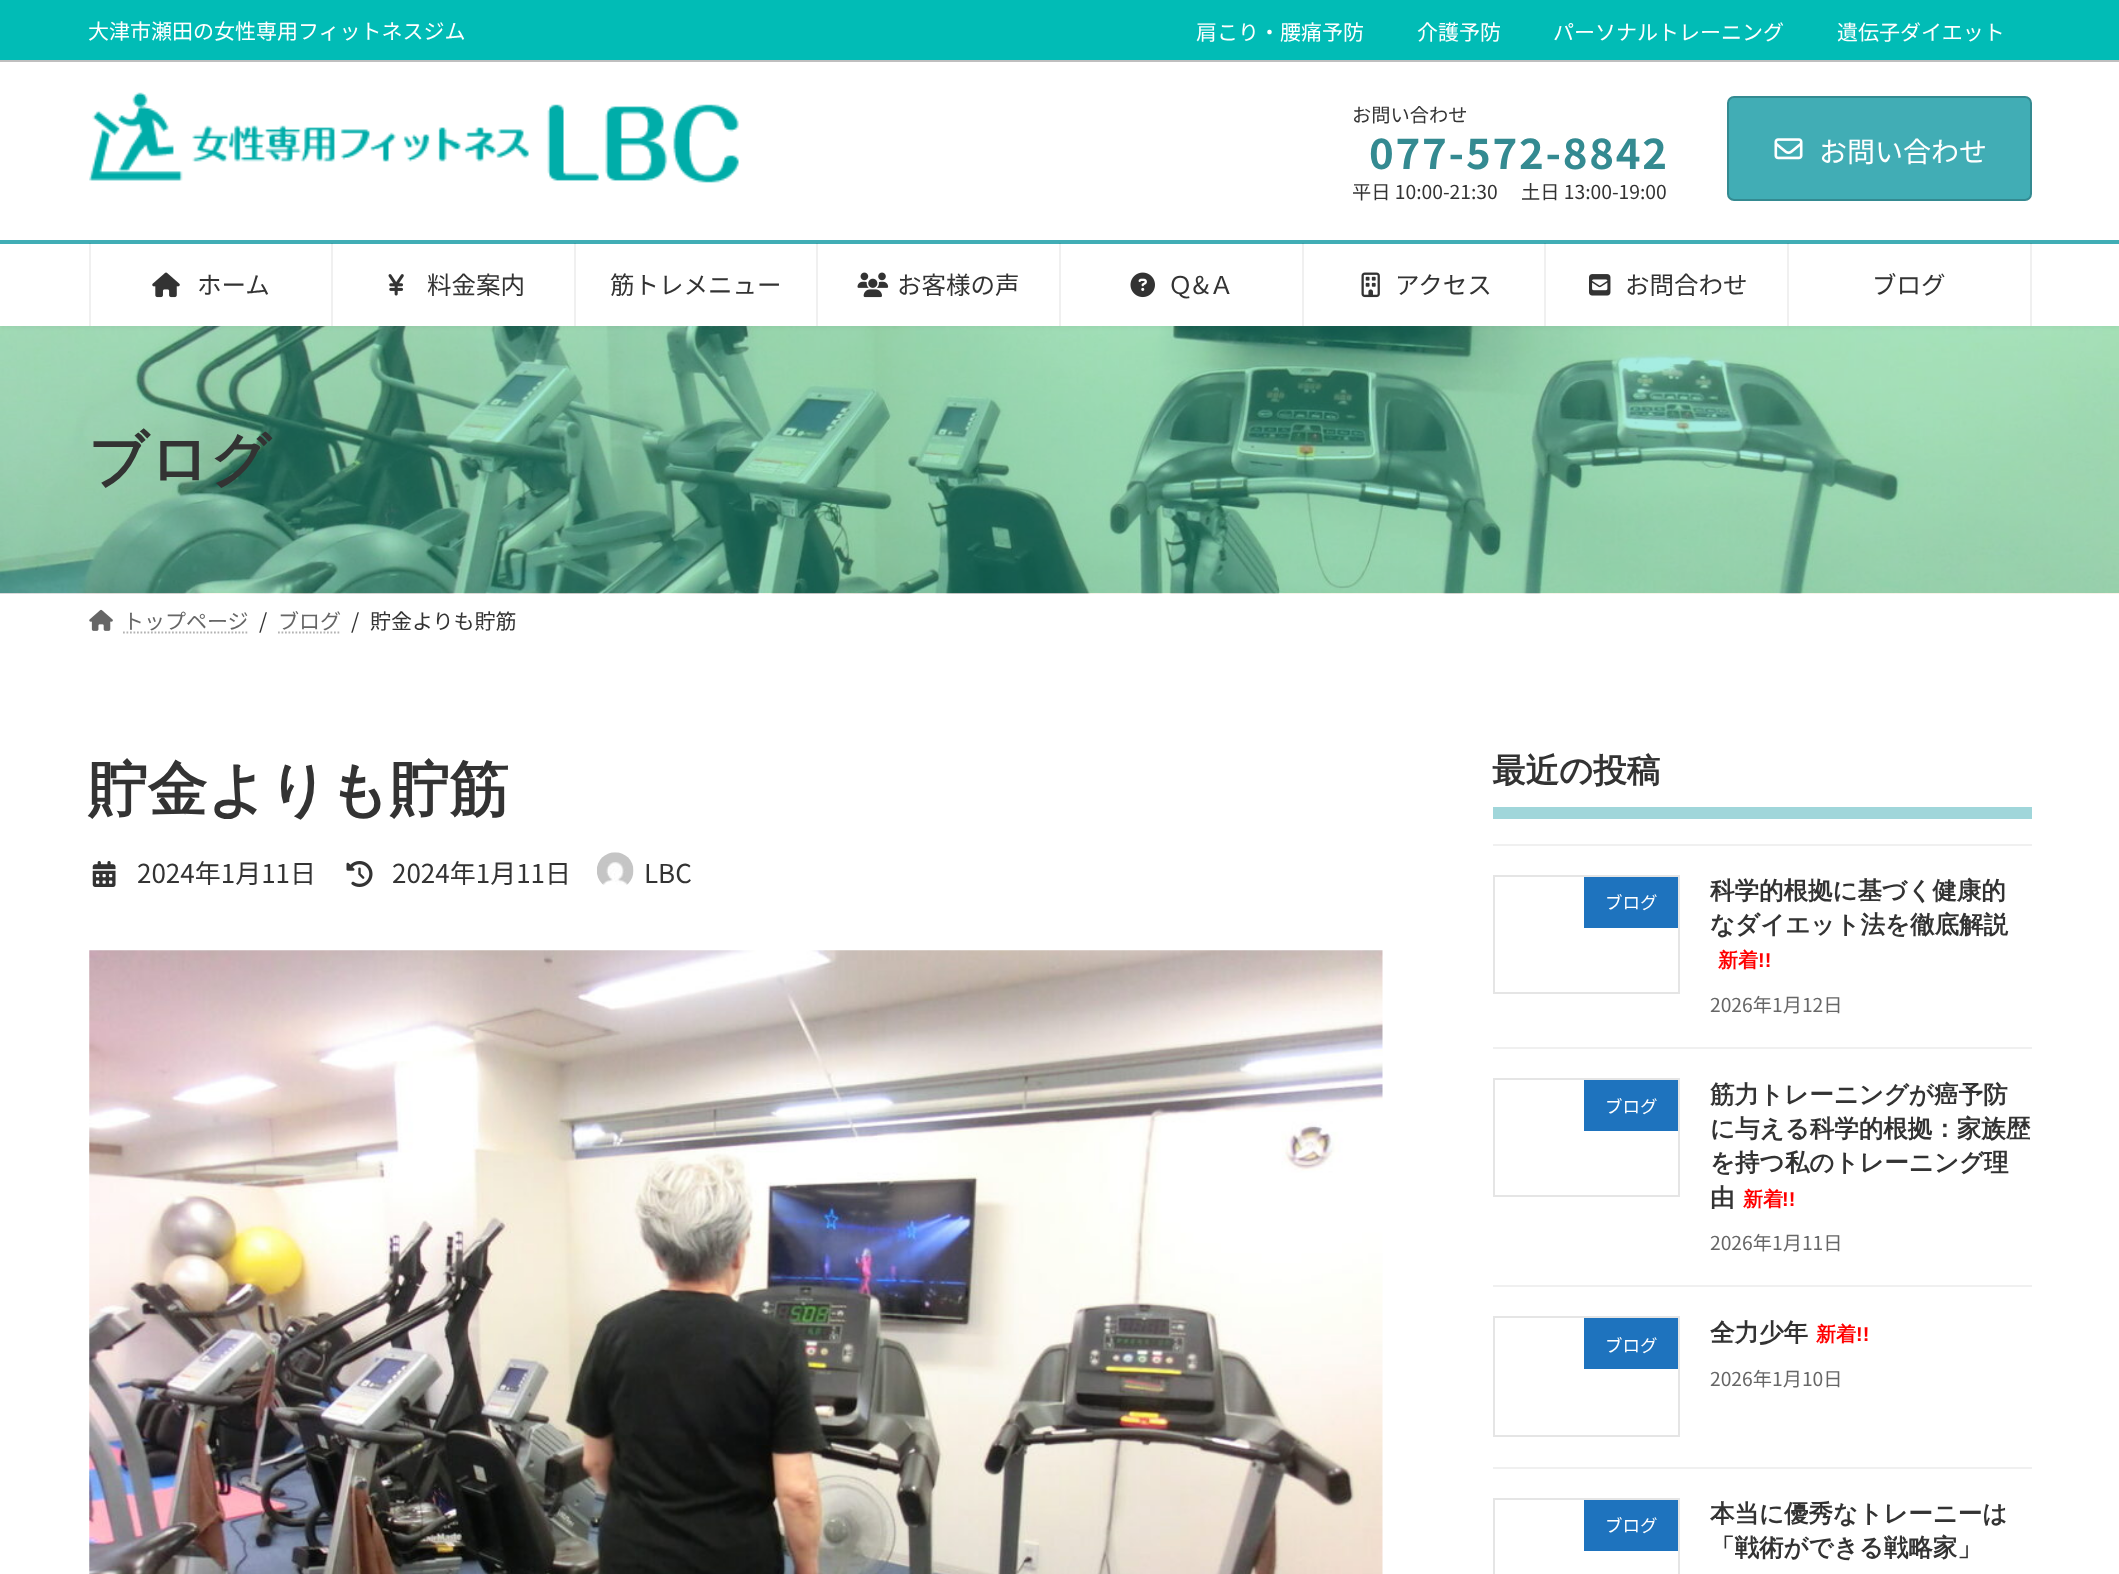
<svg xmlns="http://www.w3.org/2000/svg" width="2119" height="1574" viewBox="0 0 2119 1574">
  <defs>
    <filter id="blur1" x="-50%" y="-200%" width="200%" height="500%"><feGaussianBlur stdDeviation="2.5"/></filter>
  </defs>
  <rect width="100%" height="100%" fill="#ffffff"/>
  <image x="0" y="326" width="2119" height="268" href="img9.png"/>
  <rect x="0" y="-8" width="2119" height="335" fill="#000000" fill-opacity="0.05" filter="url(#blur1)"/>
  <rect x="0" y="62" width="2119" height="264" fill="#ffffff"/>
  <rect x="0" y="0" width="2119" height="60" fill="#01bcb6"/>
  <rect x="0" y="60" width="2119" height="2" fill="#bfbfbf"/>
  <text x="88" y="39" font-family="Noto Sans JP" font-size="21" fill="#ffffff">大津市瀬田の女性専用フィットネスジム</text>
  <text x="1196" y="40" font-family="Noto Sans JP" font-size="21" fill="#ffffff">肩こり・腰痛予防</text>
  <text x="1417" y="40" font-family="Noto Sans JP" font-size="21" fill="#ffffff">介護予防</text>
  <text x="1553" y="40" font-family="Noto Sans JP" font-size="21" fill="#ffffff">パーソナルトレーニング</text>
  <text x="1837" y="40" font-family="Noto Sans JP" font-size="21" fill="#ffffff">遺伝子ダイエット</text>
  <image x="89" y="92" width="650" height="91" href="img1.png"/>
  <text x="1352" y="122" font-family="Noto Sans JP" font-size="19.25" fill="#333333">お問い合わせ</text>
  <text x="1369" y="169" font-family="Noto Sans JP" font-size="42" font-weight="bold" letter-spacing="1.75" fill="#348a91">077-572-8842</text>
  <text x="1352" y="199" font-family="Noto Sans JP" font-size="19.25" fill="#333333">平日 10:00-21:30</text>
  <text x="1521" y="199" font-family="Noto Sans JP" font-size="19.25" fill="#333333">土日 13:00-19:00</text>
  <rect x="1728" y="97" width="303" height="103" rx="6" fill="#41adb5" stroke="#348a91" stroke-width="2"/>
  <image x="1774" y="138" width="29" height="22" href="img2.png"/>
  <text x="1819" y="162" font-family="Noto Sans JP" font-size="28" fill="#ffffff">お問い合わせ</text>
  <rect x="0" y="240" width="2119" height="4" fill="#41adb5"/>
  <rect x="331" y="243" width="2" height="83" fill="#000000" fill-opacity="0.06"/>
  <rect x="89" y="243" width="2" height="83" fill="#000000" fill-opacity="0.06"/>
  <image x="152" y="272" width="28" height="26" href="img3.png"/>
  <text x="197" y="294" font-family="Noto Sans JP" font-size="24.5" fill="#333333">ホーム</text>
  <rect x="574" y="243" width="2" height="83" fill="#000000" fill-opacity="0.06"/>
  <image x="388" y="274" width="16" height="22" href="img4.png"/>
  <text x="427" y="294" font-family="Noto Sans JP" font-size="24.5" fill="#333333">料金案内</text>
  <rect x="816" y="243" width="2" height="83" fill="#000000" fill-opacity="0.06"/>
  <text x="610" y="294" font-family="Noto Sans JP" font-size="24.5" fill="#333333">筋トレメニュー</text>
  <rect x="1059" y="243" width="2" height="83" fill="#000000" fill-opacity="0.06"/>
  <image x="857" y="272" width="32" height="26" href="img5.png"/>
  <text x="897" y="294" font-family="Noto Sans JP" font-size="24.5" fill="#333333">お客様の声</text>
  <rect x="1302" y="243" width="2" height="83" fill="#000000" fill-opacity="0.06"/>
  <image x="1130" y="272" width="25" height="26" href="img6.png"/>
  <text x="1168" y="294" font-family="Noto Sans JP" font-size="24.5" fill="#333333">Ｑ&amp;Ａ</text>
  <rect x="1544" y="243" width="2" height="83" fill="#000000" fill-opacity="0.06"/>
  <image x="1361" y="272" width="19" height="26" href="img7.png"/>
  <text x="1395" y="294" font-family="Noto Sans JP" font-size="24.5" fill="#333333">アクセス</text>
  <rect x="1787" y="243" width="2" height="83" fill="#000000" fill-opacity="0.06"/>
  <image x="1589" y="274" width="22" height="22" href="img8.png"/>
  <text x="1625" y="294" font-family="Noto Sans JP" font-size="24.5" fill="#333333">お問合わせ</text>
  <rect x="2030" y="243" width="2" height="83" fill="#000000" fill-opacity="0.06"/>
  <text x="1872" y="294" font-family="Noto Sans JP" font-size="24.5" fill="#333333">ブログ</text>
  <text x="88" y="480" font-family="WenQuanYi Zen Hei" font-size="59.5" font-weight="bold" fill="#333333">ブログ</text>
  <image x="89" y="609" width="24" height="22" href="img10.png"/>
  <text x="123" y="629" font-family="Noto Sans JP" font-size="21" fill="#666666">トップページ</text>
  <path d="M123 632.5H248.5" fill="none" stroke="#b3b3b3" stroke-width="1.8" stroke-dasharray="1.75 1.75"/>
  <text x="259" y="629" font-family="Noto Sans JP" font-size="21" fill="#333333">/</text>
  <text x="278" y="629" font-family="Noto Sans JP" font-size="21" fill="#666666">ブログ</text>
  <path d="M278 632.5H341" fill="none" stroke="#b3b3b3" stroke-width="1.8" stroke-dasharray="1.75 1.75"/>
  <text x="351" y="629" font-family="Noto Sans JP" font-size="21" fill="#333333">/</text>
  <text x="370" y="629" font-family="Noto Sans JP" font-size="21" fill="#333333">貯金よりも貯筋</text>
  <text x="88" y="810" font-family="WenQuanYi Zen Hei" font-size="59.5" font-weight="bold" fill="#333333">貯金よりも貯筋</text>
  <image x="92" y="861" width="24" height="26" href="img11.png"/>
  <text x="137" y="883" font-family="Noto Sans JP" font-size="26" fill="#333333">2024年1月11日</text>
  <image x="346" y="861" width="27" height="26" href="img12.png"/>
  <text x="392" y="883" font-family="Noto Sans JP" font-size="26" fill="#333333">2024年1月11日</text>
  <image x="597" y="852" width="37" height="33" href="img13.png"/>
  <text x="644" y="883" font-family="Noto Sans JP" font-size="26" fill="#333333">LBC</text>
  <image x="89" y="950" width="1294" height="624" href="img14.png"/>
  <text x="1492" y="782" font-family="WenQuanYi Zen Hei" font-size="33.5" font-weight="bold" fill="#333333">最近の投稿</text>
  <rect x="1493" y="807" width="539" height="12" fill="#a0d6da"/>
  <rect x="1493" y="844" width="539" height="2" fill="#f0f0f0"/>
  <rect x="1493" y="1047" width="539" height="2" fill="#f0f0f0"/>
  <rect x="1494" y="876" width="185" height="117" fill="none" stroke="#e5e5e5" stroke-width="2"/>
  <rect x="1584" y="877" width="94" height="51" fill="#1e73be"/>
  <text x="1605" y="909" font-family="Noto Sans JP" font-size="17.5" fill="#ffffff">ブログ</text>
  <text x="1710" y="899" font-family="WenQuanYi Zen Hei" font-size="24.5" font-weight="bold" fill="#333333">科学的根拠に基づく健康的</text>
  <text x="1710" y="933" font-family="WenQuanYi Zen Hei" font-size="24.5" font-weight="bold" fill="#333333">なダイエット法を徹底解説</text>
  <text x="1718" y="967" font-family="WenQuanYi Zen Hei" font-size="20" font-weight="bold" fill="#ff0000">新着</text>
  <text x="1758" y="967" font-family="Liberation Sans" font-size="20" font-weight="bold" fill="#ff0000">!!</text>
  <text x="1710" y="1012" font-family="Noto Sans JP" font-size="19.25" fill="#666666">2026年1月12日</text>
  <rect x="1493" y="1285" width="539" height="2" fill="#f0f0f0"/>
  <rect x="1494" y="1079" width="185" height="117" fill="none" stroke="#e5e5e5" stroke-width="2"/>
  <rect x="1584" y="1080" width="94" height="51" fill="#1e73be"/>
  <text x="1605" y="1113" font-family="Noto Sans JP" font-size="17.5" fill="#ffffff">ブログ</text>
  <text x="1710" y="1103" font-family="WenQuanYi Zen Hei" font-size="24.5" font-weight="bold" fill="#333333">筋力トレーニングが癌予防</text>
  <text x="1710" y="1137" font-family="WenQuanYi Zen Hei" font-size="24.5" font-weight="bold" fill="#333333">に与える科学的根拠：家族歴</text>
  <text x="1710" y="1171" font-family="WenQuanYi Zen Hei" font-size="24.5" font-weight="bold" fill="#333333">を持つ私のトレーニング理</text>
  <text x="1710" y="1206" font-family="WenQuanYi Zen Hei" font-size="24.5" font-weight="bold" fill="#333333">由</text>
  <text x="1743" y="1206" font-family="WenQuanYi Zen Hei" font-size="20" font-weight="bold" fill="#ff0000">新着</text>
  <text x="1782" y="1206" font-family="Liberation Sans" font-size="20" font-weight="bold" fill="#ff0000">!!</text>
  <text x="1710" y="1250" font-family="Noto Sans JP" font-size="19.25" fill="#666666">2026年1月11日</text>
  <rect x="1493" y="1467" width="539" height="2" fill="#f0f0f0"/>
  <rect x="1494" y="1317" width="185" height="119" fill="none" stroke="#e5e5e5" stroke-width="2"/>
  <rect x="1584" y="1318" width="94" height="51" fill="#1e73be"/>
  <text x="1605" y="1352" font-family="Noto Sans JP" font-size="17.5" fill="#ffffff">ブログ</text>
  <text x="1710" y="1341" font-family="WenQuanYi Zen Hei" font-size="24.5" font-weight="bold" fill="#333333">全力少年</text>
  <text x="1816" y="1341" font-family="WenQuanYi Zen Hei" font-size="20" font-weight="bold" fill="#ff0000">新着</text>
  <text x="1856" y="1341" font-family="Liberation Sans" font-size="20" font-weight="bold" fill="#ff0000">!!</text>
  <text x="1710" y="1386" font-family="Noto Sans JP" font-size="19.25" fill="#666666">2026年1月10日</text>
  <rect x="1494" y="1499" width="185" height="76" fill="none" stroke="#e5e5e5" stroke-width="2"/>
  <rect x="1584" y="1500" width="94" height="51" fill="#1e73be"/>
  <text x="1605" y="1532" font-family="Noto Sans JP" font-size="17.5" fill="#ffffff">ブログ</text>
  <text x="1710" y="1522" font-family="WenQuanYi Zen Hei" font-size="24.5" font-weight="bold" fill="#333333">本当に優秀なトレーニーは</text>
  <text x="1710" y="1556" font-family="WenQuanYi Zen Hei" font-size="24.5" font-weight="bold" fill="#333333">「戦術ができる戦略家」</text>
</svg>
